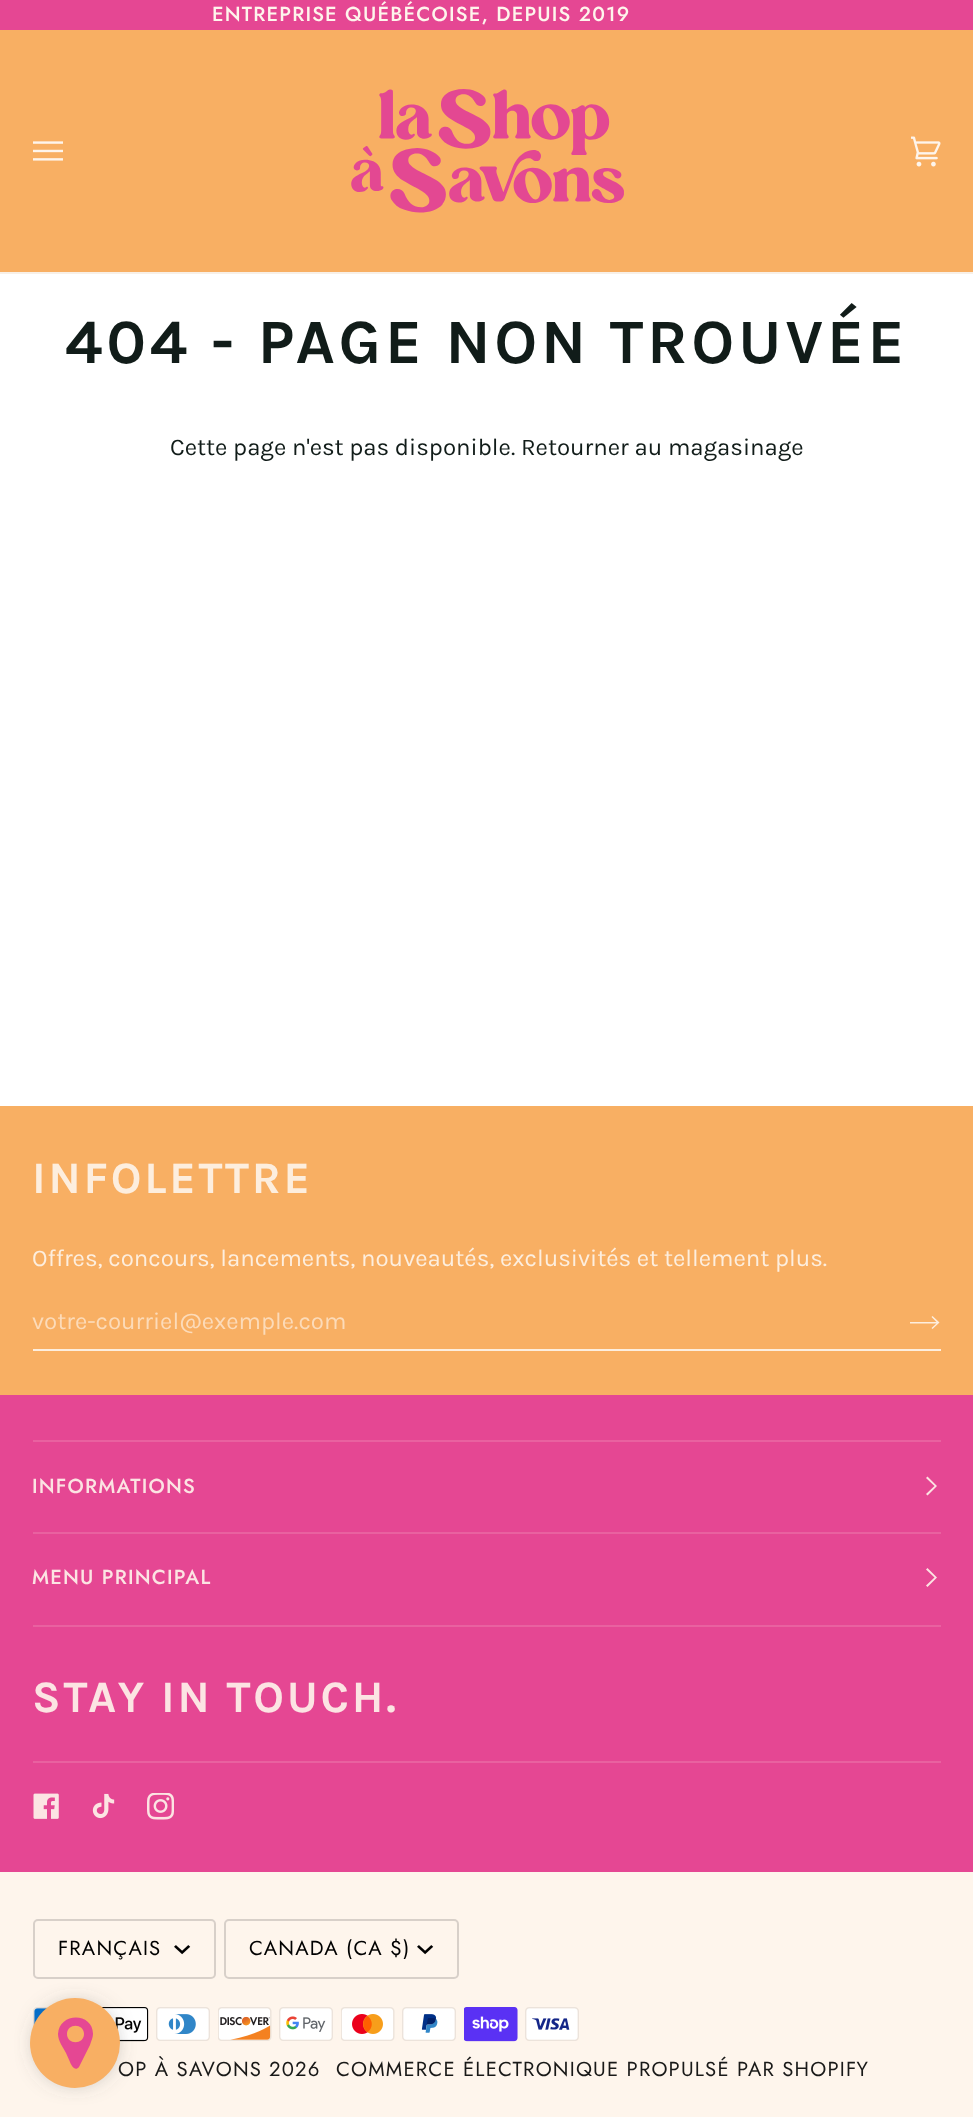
<svg xmlns="http://www.w3.org/2000/svg" width="973" height="2117" viewBox="0 0 973 2117">
  <defs>
    <filter id="blur1" x="-50%" y="-200%" width="200%" height="500%"><feGaussianBlur stdDeviation="13.5"/></filter>
  </defs>
  <rect width="100%" height="100%" fill="#ffffff"/>
  <rect x="0" y="0" width="973" height="30" fill="#e54793"/>
  <text x="212" y="21" font-family="Jost" font-size="20.25" font-weight="500" letter-spacing="1.2" fill="#fef5ec">ENTREPRISE QUÉBÉCOISE, DEPUIS 2019</text>
  <rect x="0" y="30" width="973" height="242" fill="#f8af63"/>
  <rect x="0" y="272" width="973" height="2" fill="#f8f0e7"/>
  <image x="33" y="141" width="30" height="20" href="img1.png"/>
  <image x="351" y="89" width="273" height="124" href="img2.png"/>
  <image x="911" y="136" width="30" height="31" href="img3.png"/>
  <text x="65" y="363" font-family="Karla" font-size="63" font-weight="bold" letter-spacing="3.75" fill="#111c19">404 - PAGE NON TROUVÉE</text>
  <text x="170" y="455" font-family="Karla" font-size="24" fill="#111c19">Cette page n'est pas disponible. Retourner au magasinage</text>
  <rect x="0" y="1395" width="973" height="477" fill="#e54793"/>
  <rect x="0" y="1106" width="973" height="289" fill="#f8af63"/>
  <text x="32" y="1193" font-family="Karla" font-size="45" font-weight="bold" letter-spacing="2.75" fill="#fdeede">INFOLETTRE</text>
  <text x="32" y="1266" font-family="Karla" font-size="24" fill="#fdeede">Offres, concours, lancements, nouveautés, exclusivités et tellement plus.</text>
  <rect x="33" y="1349" width="908" height="2" fill="#fdeede"/>
  <text x="32" y="1329" font-family="Karla" font-size="24" fill="#fcdbb9">votre-courriel@exemple.com</text>
  <path d="M931.5 1317L932.5 1316L939.5 1322.5L932.5 1329L931.5 1328L936.5 1323.5H910V1322H936.5Z" fill="#fdeede"/>
  <rect x="33" y="1440" width="908" height="2" fill="#e961a0"/>
  <rect x="33" y="1532" width="908" height="2" fill="#e961a0"/>
  <text x="32" y="1493" font-family="Jost" font-size="20.25" font-weight="500" letter-spacing="1.2" fill="#fce4e3">INFORMATIONS</text>
  <path d="M934.5 1486L926 1478L927.5 1476.5L937 1486L927.5 1495.5L926 1494Z" fill="#fce4e3" fill-rule="evenodd"/>
  <rect x="33" y="1625" width="908" height="2" fill="#e961a0"/>
  <text x="32" y="1584" font-family="Jost" font-size="20.25" font-weight="500" letter-spacing="1.2" fill="#fce4e3">MENU PRINCIPAL</text>
  <path d="M934.5 1577.5L926 1569.5L927.5 1568L937 1577.5L927.5 1587L926 1585.5Z" fill="#fce4e3" fill-rule="evenodd"/>
  <text x="32" y="1712" font-family="Karla" font-size="45" font-weight="bold" letter-spacing="2.75" fill="#fce4e3">STAY IN TOUCH.</text>
  <rect x="33" y="1761" width="908" height="2" fill="#e961a0"/>
  <image x="33" y="1793" width="26" height="26" href="img4.png"/>
  <image x="92" y="1793" width="23" height="26" href="img5.png"/>
  <image x="147" y="1793" width="27" height="27" href="img6.png"/>
  <rect x="0" y="1872" width="973" height="245" fill="#fef5ec"/>
  <rect x="34" y="1920" width="181" height="58" rx="4" fill="none" stroke="#d8d0c9" stroke-width="2"/>
  <text x="58" y="1955" font-family="Jost" font-size="20.25" letter-spacing="1.2" fill="#000000">FRANÇAIS</text>
  <image x="174" y="1945" width="17" height="10" href="img7.png"/>
  <rect x="225" y="1920" width="233" height="58" rx="4" fill="none" stroke="#d8d0c9" stroke-width="2"/>
  <text x="249" y="1955" font-family="Jost" font-size="20.25" letter-spacing="1.2" fill="#000000">CANADA (CA $)</text>
  <image x="417" y="1945" width="17" height="10" href="img7.png"/>
  <image x="33" y="2007" width="15" height="20" href="img8.png"/>
  <image x="102" y="2007" width="47" height="35" href="img9.png"/>
  <image x="156" y="2007" width="54" height="34" href="img10.png"/>
  <image x="218" y="2007" width="54" height="34" href="img11.png"/>
  <image x="279" y="2007" width="54" height="34" href="img12.png"/>
  <image x="341" y="2007" width="54" height="34" href="img13.png"/>
  <image x="402" y="2007" width="54" height="34" href="img14.png"/>
  <image x="464" y="2007" width="54" height="35" href="img15.png"/>
  <image x="525" y="2007" width="54" height="34" href="img16.png"/>
  <text x="118" y="2076" font-family="Jost" font-size="20.25" letter-spacing="1.2" fill="#191918">OP À SAVONS</text>
  <text x="269" y="2076" font-family="Jost" font-size="20.25" letter-spacing="1.2" fill="#191918">2026</text>
  <text x="336" y="2076" font-family="Jost" font-size="20.25" letter-spacing="1.2" fill="#191918">COMMERCE ÉLECTRONIQUE PROPULSÉ PAR SHOPIFY</text>
  <rect x="44" y="2012" width="63" height="63" rx="31.5" fill="#5a5a5a" filter="url(#blur1)"/>
  <circle cx="75" cy="2043" r="45" fill="#f8af63"/>
  <path d="M84 2034C84 2023 67 2023 67 2034C67 2045 84 2045 84 2034ZM93 2034C93 2038 91 2041 90 2045L79 2067C75 2072 71 2065 70 2062L66 2053C63 2047 58 2041 58 2034C59 2012 93 2012 93 2034Z" fill="#e54793"/>
</svg>
